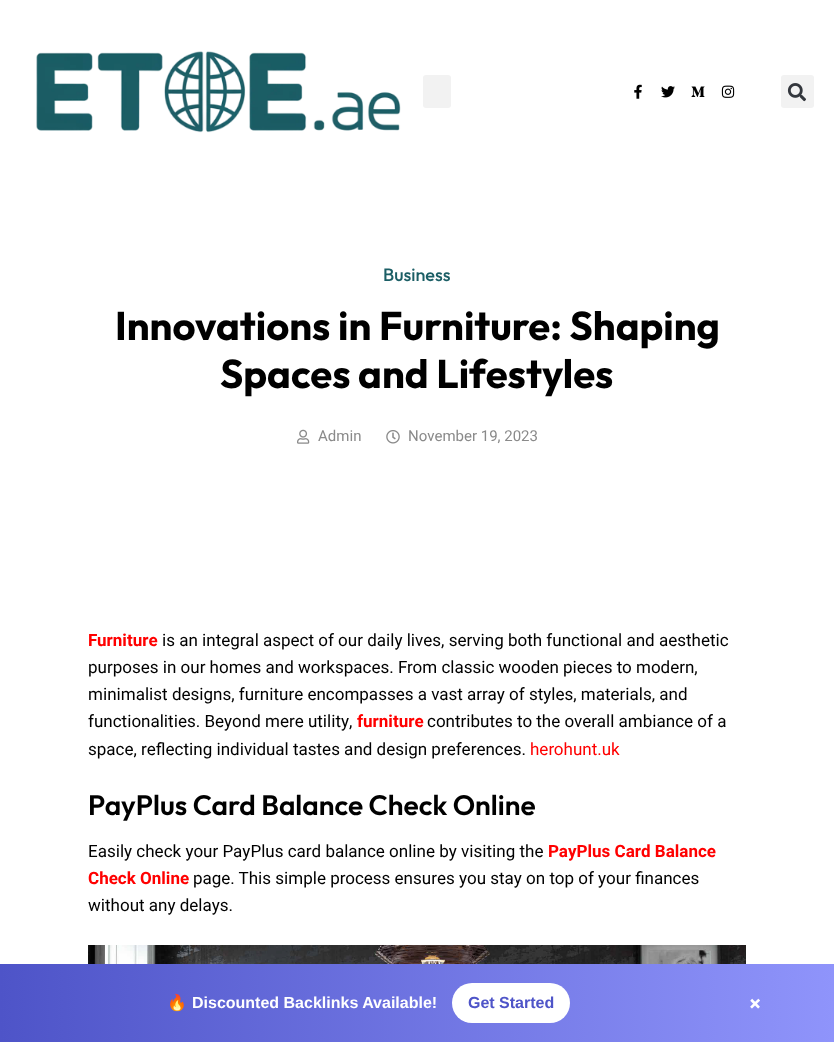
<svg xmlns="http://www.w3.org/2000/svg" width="834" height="1042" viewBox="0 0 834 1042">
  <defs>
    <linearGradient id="g1" gradientUnits="userSpaceOnUse" x1="0" y1="1003" x2="834" y2="1003"><stop offset="0" stop-color="#4e54c8"/><stop offset="1" stop-color="#8f94fb"/></linearGradient>
  </defs>
  <rect width="100%" height="100%" fill="#ffffff"/>
  <image x="36" y="51" width="365" height="82" href="img1.png"/>
  <rect x="423" y="75" width="28" height="33" rx="3" fill="#f2f2f2"/>
  <image x="634" y="84" width="8" height="15" href="img2.png"/>
  <image x="661" y="86" width="14" height="12" href="img3.png"/>
  <image x="691" y="86" width="14" height="11" href="img4.png"/>
  <image x="721" y="85" width="14" height="13" href="img5.png"/>
  <rect x="781" y="75" width="33" height="33" rx="3" fill="#f2f2f2"/>
  <image x="787" y="83" width="19" height="19" href="img6.png"/>
  <text x="383" y="281" font-family="Outfit" font-size="18" font-weight="500" fill="#1b5e65">Business</text>
  <text x="115" y="340" font-family="Outfit" font-size="40" font-weight="bold" fill="#000000">Innovations in Furniture: Shaping</text>
  <text x="220" y="388" font-family="Outfit" font-size="40" font-weight="bold" fill="#000000">Spaces and Lifestyles</text>
  <image x="297" y="429" width="13" height="15" href="img7.png"/>
  <text x="318" y="441" font-family="Heebo" font-size="15" fill="#8a8a8a">Admin</text>
  <image x="386" y="430" width="14" height="14" href="img8.png"/>
  <text x="408" y="441" font-family="Heebo" font-size="15" fill="#8a8a8a">November 19, 2023</text>
  <text x="88" y="646" font-family="Heebo" font-size="17" font-weight="bold" fill="#ff0000">Furniture</text>
  <text x="162" y="646" font-family="Heebo" font-size="17" fill="#000000">is an integral aspect of our daily lives, serving both functional and aesthetic</text>
  <text x="88" y="673" font-family="Heebo" font-size="17" fill="#000000">purposes in our homes and workspaces. From classic wooden pieces to modern,</text>
  <text x="88" y="700" font-family="Heebo" font-size="17" fill="#000000">minimalist designs, furniture encompasses a vast array of styles, materials, and</text>
  <text x="88" y="727" font-family="Heebo" font-size="17" fill="#000000">functionalities. Beyond mere utility,</text>
  <text x="357" y="727" font-family="Heebo" font-size="17" font-weight="bold" fill="#ff0000">furniture</text>
  <text x="427" y="727" font-family="Heebo" font-size="17" fill="#000000">contributes to the overall ambiance of a</text>
  <text x="88" y="755" font-family="Heebo" font-size="17" fill="#000000">space, reflecting individual tastes and design preferences.</text>
  <text x="530" y="755" font-family="Heebo" font-size="17" fill="#ff0000">herohunt.uk</text>
  <text x="88" y="815" font-family="Outfit" font-size="28" font-weight="600" fill="#000000">PayPlus Card Balance Check Online</text>
  <text x="88" y="857" font-family="Heebo" font-size="17" fill="#000000">Easily check your PayPlus card balance online by visiting the</text>
  <text x="548" y="857" font-family="Heebo" font-size="17" font-weight="bold" fill="#ff0000">PayPlus Card Balance</text>
  <text x="88" y="884" font-family="Heebo" font-size="17" font-weight="bold" fill="#ff0000">Check Online</text>
  <text x="193" y="884" font-family="Heebo" font-size="17" fill="#000000">page. This simple process ensures you stay on top of your finances</text>
  <text x="88" y="911" font-family="Heebo" font-size="17" fill="#000000">without any delays.</text>
  <image x="88" y="945" width="658" height="19" href="img9.png"/>
  <rect x="0" y="964" width="834" height="78" fill="url(#g1)"/>
  <text x="167" y="1008" font-family="Noto Color Emoji" font-size="16" font-weight="bold" fill="#ffffff">🔥</text>
  <text x="192" y="1008" font-family="Liberation Sans" font-size="16" font-weight="bold" fill="#ffffff">Discounted Backlinks Available!</text>
  <rect x="452" y="983" width="118" height="40" rx="20" fill="#ffffff"/>
  <text x="468" y="1008" font-family="Liberation Sans" font-size="16" font-weight="bold" fill="#4e54c8">Get Started</text>
  <text x="749" y="1011" font-family="Outfit" font-size="22" font-weight="600" fill="#ffffff">×</text>
</svg>
